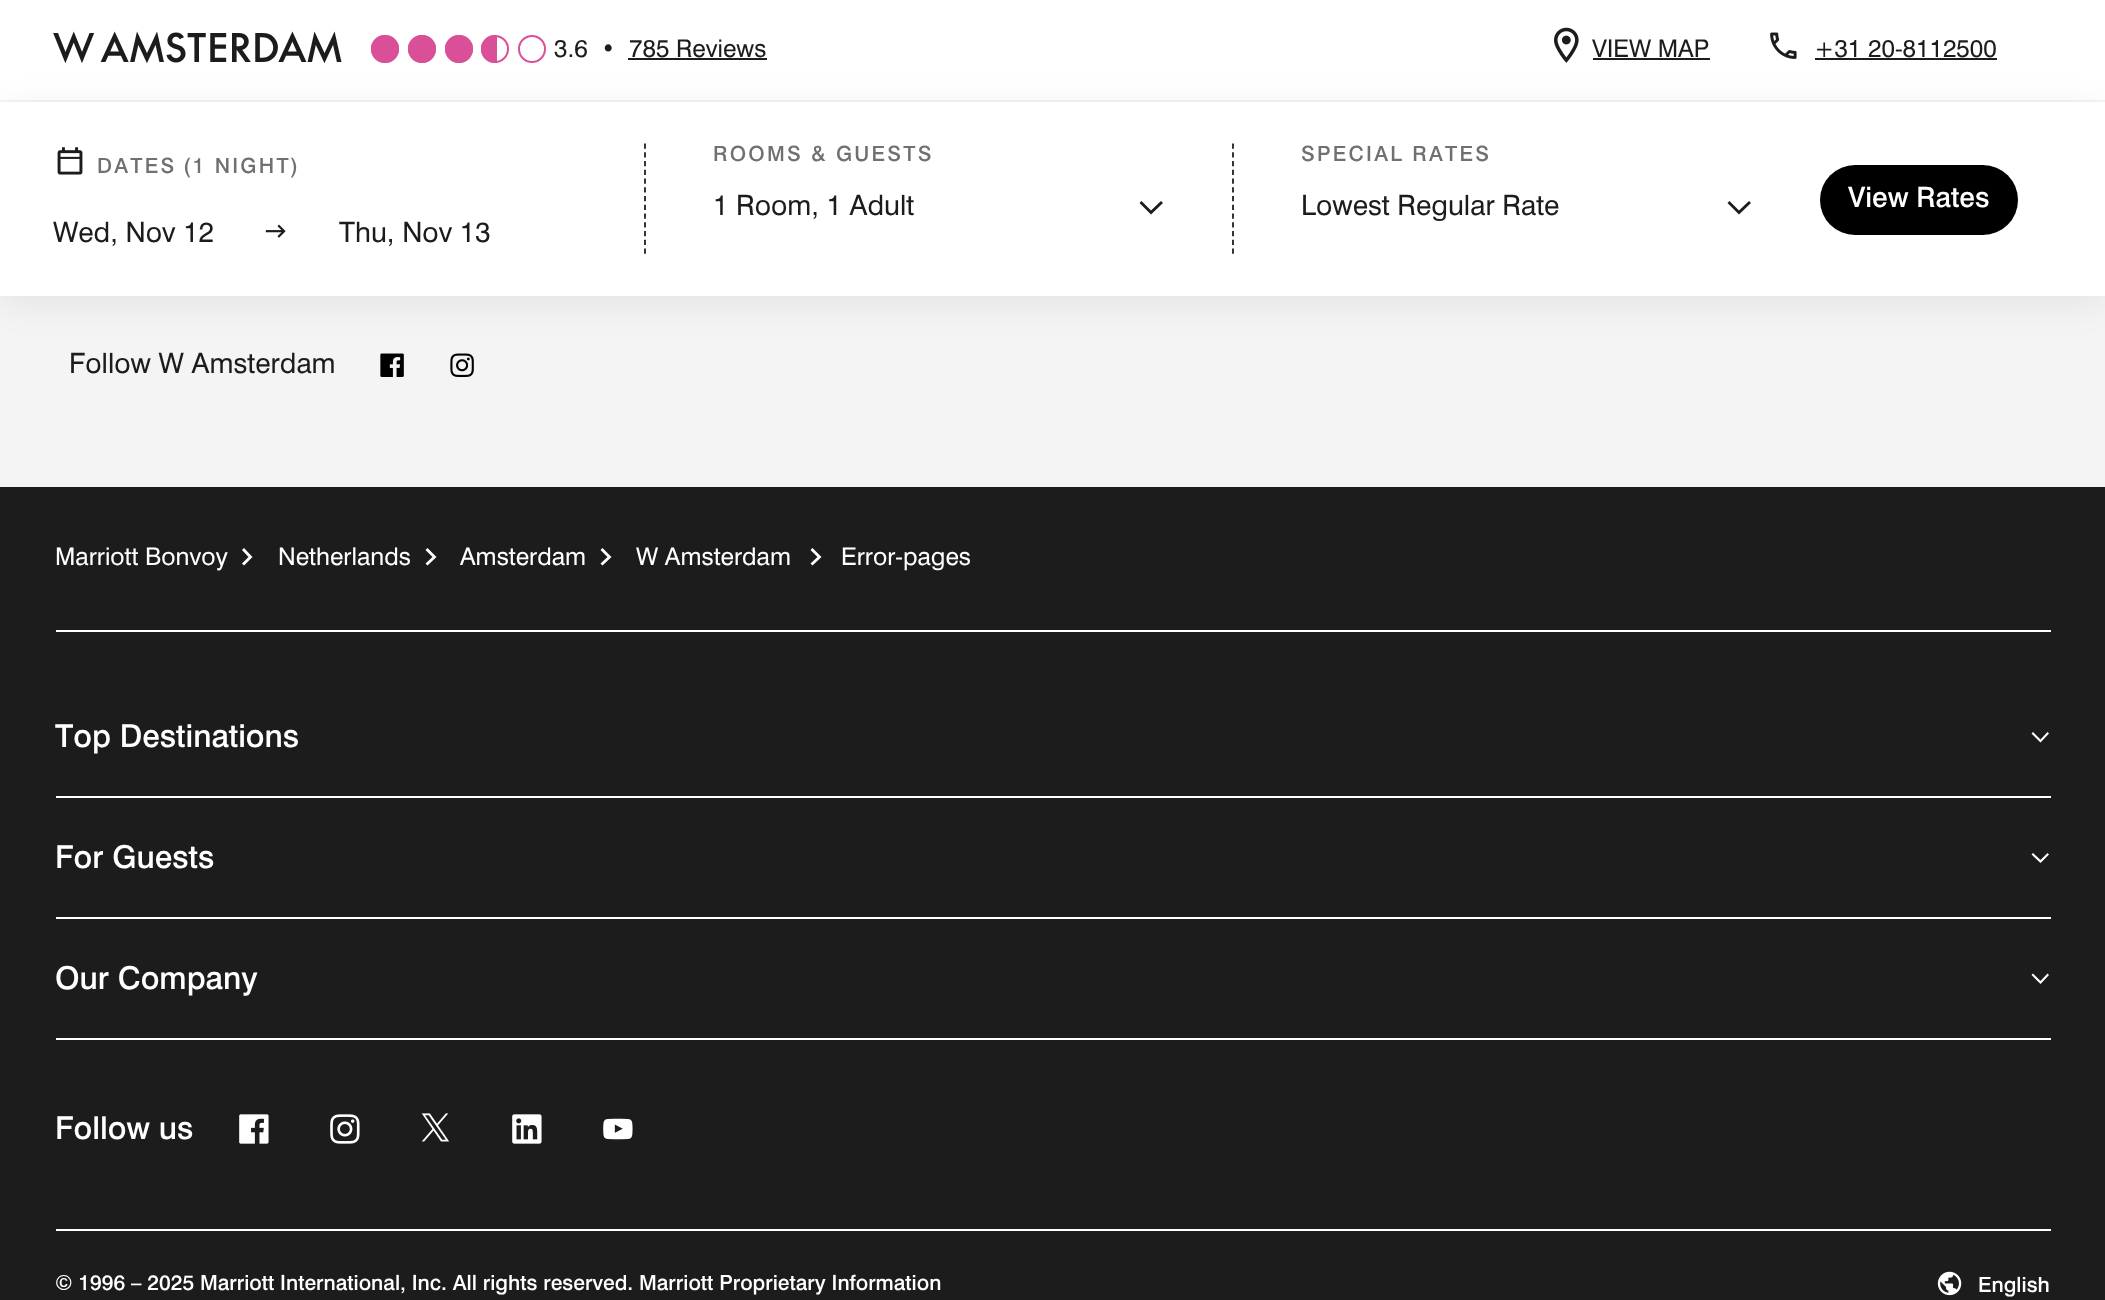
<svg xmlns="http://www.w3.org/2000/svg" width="2105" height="1300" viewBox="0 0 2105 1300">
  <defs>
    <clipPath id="clip1"><rect x="481" y="35" width="16" height="28"/></clipPath>
    <filter id="blur1" x="-50%" y="-200%" width="200%" height="500%"><feGaussianBlur stdDeviation="17.5"/></filter>
  </defs>
  <rect width="100%" height="100%" fill="#1c1c1c"/>
  <rect x="0" y="0" width="2105" height="100" fill="#ffffff"/>
  <rect x="0" y="100" width="2105" height="2" fill="#f4f4f4"/>
  <text x="53" y="62" font-family="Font" font-size="38.5" font-weight="500" fill="#1c1c1c">W AMSTERDAM</text>
  <circle cx="385" cy="49" r="13" fill="none" stroke="#da5098" stroke-width="2"/>
  <circle cx="385" cy="49" r="13" fill="#da5098" stroke="#da5098" stroke-width="2"/>
  <circle cx="422" cy="49" r="13" fill="none" stroke="#da5098" stroke-width="2"/>
  <circle cx="422" cy="49" r="13" fill="#da5098" stroke="#da5098" stroke-width="2"/>
  <circle cx="459" cy="49" r="13" fill="none" stroke="#da5098" stroke-width="2"/>
  <circle cx="459" cy="49" r="13" fill="#da5098" stroke="#da5098" stroke-width="2"/>
  <circle cx="495" cy="49" r="13" fill="none" stroke="#da5098" stroke-width="2"/>
  <g clip-path="url(#clip1)">
    <circle cx="495" cy="49" r="13" fill="#da5098" stroke="#da5098" stroke-width="2"/>
  </g>
  <circle cx="532" cy="49" r="13" fill="none" stroke="#da5098" stroke-width="2"/>
  <text x="554" y="57" font-family="'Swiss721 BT'" font-size="24.5" fill="#1c1c1c">3.6</text>
  <text x="601" y="57" font-family="'Swiss721 BT'" font-size="24.5" fill="#1c1c1c">•</text>
  <text x="629" y="57" font-family="'Swiss721 BT'" font-size="24.5" fill="#1c1c1c">785 Reviews</text>
  <rect x="628" y="58" width="139" height="2" fill="#1c1c1c"/>
  <image x="1554" y="27" width="25" height="36" href="img1.png"/>
  <text x="1592" y="57" font-family="'Swiss721 BT'" font-size="24.5" fill="#1c1c1c">VIEW MAP</text>
  <rect x="1593" y="58" width="117" height="2" fill="#1c1c1c"/>
  <image x="1770" y="32" width="27" height="27" href="img2.png"/>
  <text x="1814" y="57" font-family="'Swiss721 BT'" font-size="24.5" fill="#1c1c1c">+31 20-8112500</text>
  <rect x="1815" y="58" width="182" height="2" fill="#1c1c1c"/>
  <rect x="0" y="296" width="2105" height="191" fill="#f4f4f4"/>
  <image x="380" y="353" width="24" height="24" href="img5.png"/>
  <image x="450" y="353" width="24" height="24" href="img6.png"/>
  <rect x="0" y="109" width="2105" height="194" fill="#000000" fill-opacity="0.07" filter="url(#blur1)"/>
  <rect x="0" y="102" width="2105" height="194" fill="#ffffff"/>
  <image x="57" y="147" width="26" height="28" href="img3.png"/>
  <text x="97" y="173" font-family="'Swiss721 BT'" font-size="21" font-weight="500" letter-spacing="2.25" fill="#707070">DATES</text>
  <text x="183" y="173" font-family="'Swiss721 BT'" font-size="21" font-weight="500" letter-spacing="2.25" fill="#707070">(1 NIGHT)</text>
  <text x="53" y="242" font-family="'Swiss721 BT'" font-size="28" fill="#1c1c1c">Wed, Nov 12</text>
  <image x="265" y="224" width="21" height="14" href="img4.png"/>
  <text x="339" y="242" font-family="'Swiss721 BT'" font-size="28" fill="#1c1c1c">Thu, Nov 13</text>
  <path d="M645 143.5V254" fill="none" stroke="#231c19" stroke-width="1.8" stroke-dasharray="5.25 3.5"/>
  <text x="713" y="161" font-family="'Swiss721 BT'" font-size="21" font-weight="500" letter-spacing="2.25" fill="#707070">ROOMS &amp; GUESTS</text>
  <text x="713" y="215" font-family="'Swiss721 BT'" font-size="28" fill="#1c1c1c">1 Room, 1 Adult</text>
  <path d="M1141.5 201L1139.5 203L1151 214.5L1163 203L1161 201L1151 210.5Z" fill="#1c1c1c"/>
  <path d="M1233 143.5V254" fill="none" stroke="#231c19" stroke-width="1.8" stroke-dasharray="5.25 3.5"/>
  <text x="1301" y="161" font-family="'Swiss721 BT'" font-size="21" font-weight="500" letter-spacing="2.25" fill="#707070">SPECIAL RATES</text>
  <text x="1301" y="215" font-family="'Swiss721 BT'" font-size="28" fill="#1c1c1c">Lowest Regular Rate</text>
  <path d="M1729.5 201L1727.5 203L1739 214.5L1751 203L1749 201L1739 210.5Z" fill="#1c1c1c"/>
  <rect x="1820" y="165" width="198" height="70" rx="35" fill="#000000"/>
  <text x="1848" y="207" font-family="'Swiss721 BT'" font-size="28" font-weight="500" fill="#ffffff">View Rates</text>
  <text x="69" y="373" font-family="'Swiss721 BT'" font-size="28" fill="#1c1c1c">Follow W Amsterdam</text>
  <rect x="56" y="630" width="1995" height="2" fill="#ffffff"/>
  <text x="55" y="565" font-family="'Swiss721 BT'" font-size="24.5" fill="#ffffff">Marriott Bonvoy</text>
  <path d="M242 563.5L248.5 557L242 550L244 548L252.5 557L244 565.5Z" fill="#ffffff"/>
  <text x="278" y="565" font-family="'Swiss721 BT'" font-size="24.5" fill="#ffffff">Netherlands</text>
  <path d="M425.5 563.5L432.5 557L425.5 550L427.5 548L436.5 557L427.5 565.5Z" fill="#ffffff"/>
  <text x="460" y="565" font-family="'Swiss721 BT'" font-size="24.5" fill="#ffffff">Amsterdam</text>
  <path d="M600.5 563.5L607.5 557L600.5 550L602.5 548L611.5 557L602.5 565.5Z" fill="#ffffff"/>
  <text x="636" y="565" font-family="'Swiss721 BT'" font-size="24.5" fill="#ffffff">W Amsterdam</text>
  <path d="M810.5 563.5L817.5 557L810.5 550L812.5 548L821.5 557L812.5 565.5Z" fill="#ffffff"/>
  <text x="841" y="565" font-family="'Swiss721 BT'" font-size="24.5" fill="#ffffff">Error-pages</text>
  <rect x="56" y="796" width="1995" height="2" fill="#ffffff"/>
  <text x="55" y="747" font-family="'Swiss721 BT'" font-size="31.5" font-weight="500" fill="#ffffff">Top Destinations</text>
  <path d="M2033 732L2031.5 733.5L2040.5 742.5L2049 733.5L2047.5 732L2040.5 739.5Z" fill="#ffffff"/>
  <rect x="56" y="917" width="1995" height="2" fill="#ffffff"/>
  <text x="55" y="868" font-family="'Swiss721 BT'" font-size="31.5" font-weight="500" fill="#ffffff">For Guests</text>
  <path d="M2033 853L2031.5 854.5L2040.5 863L2049 854.5L2047.5 853L2040.5 860Z" fill="#ffffff"/>
  <rect x="56" y="1038" width="1995" height="2" fill="#ffffff"/>
  <text x="55" y="989" font-family="'Swiss721 BT'" font-size="31.5" font-weight="500" fill="#ffffff">Our Company</text>
  <path d="M2033 973.5L2031.5 975L2040.5 984L2049 975L2047.5 973.5L2040.5 981Z" fill="#ffffff"/>
  <text x="55" y="1139" font-family="'Swiss721 BT'" font-size="31.5" font-weight="500" fill="#ffffff">Follow us</text>
  <image x="239" y="1114" width="30" height="30" href="img7.png"/>
  <image x="330" y="1114" width="30" height="30" href="img8.png"/>
  <image x="421" y="1113" width="28" height="29" href="img9.png"/>
  <image x="512" y="1114" width="30" height="30" href="img10.png"/>
  <image x="603" y="1118" width="30" height="22" href="img11.png"/>
  <rect x="56" y="1229" width="1995" height="2" fill="#ffffff"/>
  <text x="55" y="1290" font-family="'Swiss721 BT'" font-size="21" font-weight="500" fill="#ffffff">© 1996 – 2025 Marriott International, Inc. All rights reserved. Marriott Proprietary Information</text>
  <image x="1937" y="1271" width="25" height="25" href="img12.png"/>
  <text x="1978" y="1292" font-family="'Swiss721 BT'" font-size="21" font-weight="500" fill="#ffffff">English</text>
</svg>
